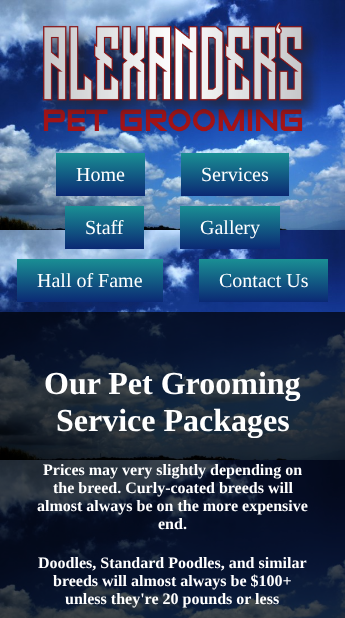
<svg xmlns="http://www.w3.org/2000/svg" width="345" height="618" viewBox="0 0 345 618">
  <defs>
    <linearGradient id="g1" gradientUnits="userSpaceOnUse" x1="101" y1="153" x2="101" y2="196"><stop offset="0" stop-color="#1a8f94"/><stop offset="1" stop-color="#0b2974"/></linearGradient>
    <linearGradient id="g2" gradientUnits="userSpaceOnUse" x1="235" y1="153" x2="235" y2="196"><stop offset="0" stop-color="#1a8f94"/><stop offset="1" stop-color="#0b2974"/></linearGradient>
    <linearGradient id="g3" gradientUnits="userSpaceOnUse" x1="105" y1="206" x2="105" y2="249"><stop offset="0" stop-color="#1a8f94"/><stop offset="1" stop-color="#0b2974"/></linearGradient>
    <linearGradient id="g4" gradientUnits="userSpaceOnUse" x1="230" y1="206" x2="230" y2="249"><stop offset="0" stop-color="#1a8f94"/><stop offset="1" stop-color="#0b2974"/></linearGradient>
    <linearGradient id="g5" gradientUnits="userSpaceOnUse" x1="90" y1="259" x2="90" y2="302"><stop offset="0" stop-color="#1a8f94"/><stop offset="1" stop-color="#0b2974"/></linearGradient>
    <linearGradient id="g6" gradientUnits="userSpaceOnUse" x1="264" y1="259" x2="264" y2="302"><stop offset="0" stop-color="#1a8f94"/><stop offset="1" stop-color="#0b2974"/></linearGradient>
  </defs>
  <rect width="100%" height="100%" fill="#ffffff"/>
  <image x="0" y="0" width="345" height="618" href="img1.png"/>
  <image x="41" y="22" width="280" height="110" href="img2.png"/>
  <rect x="56" y="153" width="89" height="43" fill="url(#g1)"/>
  <text x="76" y="181" font-family="Liberation Serif" font-size="20" fill="#ffffff">Home</text>
  <rect x="181" y="153" width="108" height="43" fill="url(#g2)"/>
  <text x="201" y="181" font-family="Liberation Serif" font-size="20" fill="#ffffff">Services</text>
  <rect x="65" y="206" width="79" height="43" fill="url(#g3)"/>
  <text x="85" y="234" font-family="Liberation Serif" font-size="20" fill="#ffffff">Staff</text>
  <rect x="180" y="206" width="100" height="43" fill="url(#g4)"/>
  <text x="200" y="234" font-family="Liberation Serif" font-size="20" fill="#ffffff">Gallery</text>
  <rect x="17" y="259" width="146" height="43" fill="url(#g5)"/>
  <text x="37" y="287" font-family="Liberation Serif" font-size="20" fill="#ffffff">Hall of Fame</text>
  <rect x="199" y="259" width="129" height="43" fill="url(#g6)"/>
  <text x="219" y="287" font-family="Liberation Serif" font-size="20" fill="#ffffff">Contact Us</text>
  <rect x="0" y="312" width="345" height="306" fill="#000000" fill-opacity="0.7"/>
  <text x="44" y="394" font-family="Liberation Serif" font-size="32" font-weight="bold" fill="#ffffff">Our Pet Grooming</text>
  <text x="56" y="431" font-family="Liberation Serif" font-size="32" font-weight="bold" fill="#ffffff">Service Packages</text>
  <text x="43" y="475" font-family="Liberation Serif" font-size="16" font-weight="bold" fill="#ffffff">Prices may very slightly depending on</text>
  <text x="53" y="493" font-family="Liberation Serif" font-size="16" font-weight="bold" fill="#ffffff">the breed. Curly-coated breeds will</text>
  <text x="37" y="511" font-family="Liberation Serif" font-size="16" font-weight="bold" fill="#ffffff">almost always be on the more expensive</text>
  <text x="158" y="529" font-family="Liberation Serif" font-size="16" font-weight="bold" fill="#ffffff">end.</text>
  <text x="38" y="568" font-family="Liberation Serif" font-size="16" font-weight="bold" fill="#ffffff">Doodles, Standard Poodles, and similar</text>
  <text x="53" y="586" font-family="Liberation Serif" font-size="16" font-weight="bold" fill="#ffffff">breeds will almost always be $100+</text>
  <text x="65" y="604" font-family="Liberation Serif" font-size="16" font-weight="bold" fill="#ffffff">unless they're 20 pounds or less</text>
</svg>
